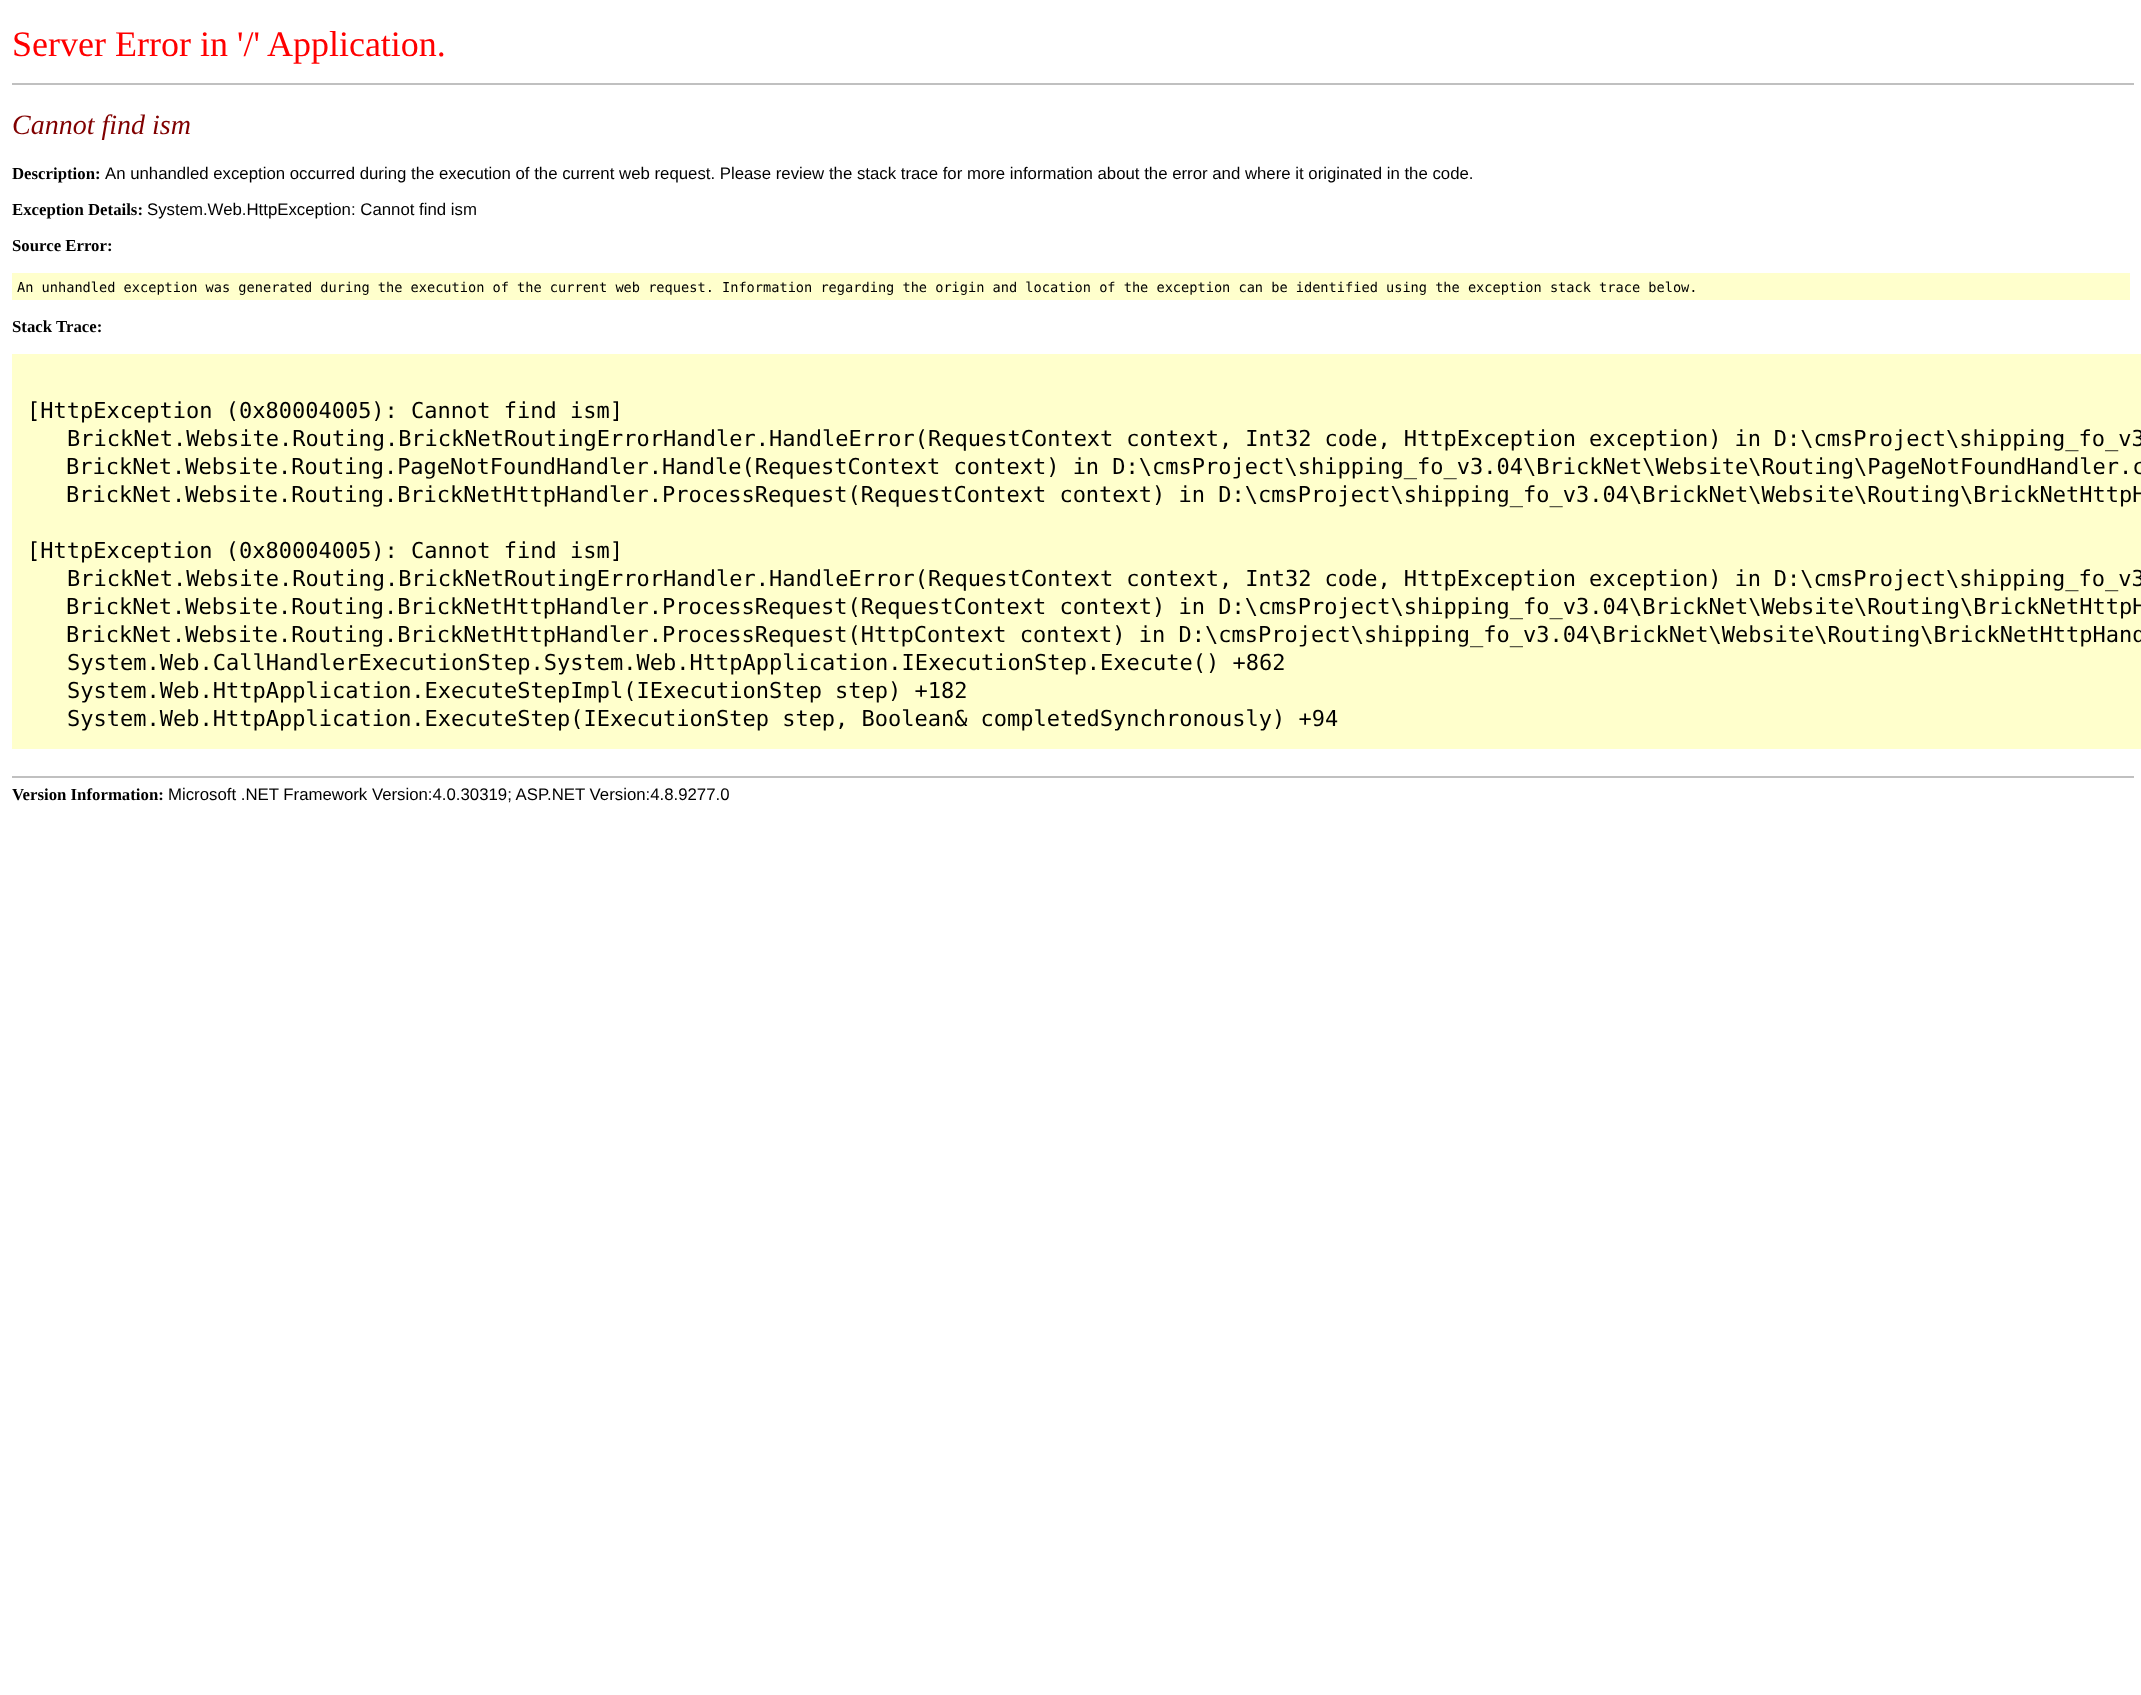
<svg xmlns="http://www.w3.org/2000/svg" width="2141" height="1695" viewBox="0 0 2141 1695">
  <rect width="100%" height="100%" fill="#ffffff"/>
  <text x="12" y="56" font-family="Liberation Serif" font-size="36" fill="#ff0000">Server Error in '/' Application.</text>
  <rect x="12" y="83" width="2122" height="2" fill="#c0c0c0"/>
  <text x="12" y="134" font-family="Liberation Serif" font-size="28" font-style="italic" fill="#800000">Cannot find ism</text>
  <text x="12" y="179" font-family="Liberation Serif" font-size="16.8" font-weight="bold" fill="#000000">Description:</text>
  <text x="105" y="179" font-family="Liberation Sans" font-size="16.8" fill="#000000">An unhandled exception occurred during the execution of the current web request. Please review the stack trace for more information about the error and where it originated in the code.</text>
  <text x="12" y="215" font-family="Liberation Serif" font-size="16.8" font-weight="bold" fill="#000000">Exception Details:</text>
  <text x="147" y="215" font-family="Liberation Sans" font-size="16.8" fill="#000000">System.Web.HttpException: Cannot find ism</text>
  <text x="12" y="251" font-family="Liberation Serif" font-size="16.8" font-weight="bold" fill="#000000">Source Error:</text>
  <rect x="12" y="273" width="2118" height="27" fill="#ffffcc"/>
  <text x="17" y="292" word-spacing="-0.1" font-family="DejaVu Sans Mono" font-size="13.65" fill="#000000">An unhandled exception was generated during the execution of the current web request. Information regarding the origin and location of the exception can be identified using the exception stack trace below.</text>
  <text x="12" y="332" font-family="Liberation Serif" font-size="16.8" font-weight="bold" fill="#000000">Stack Trace:</text>
  <rect x="12" y="354" width="2129" height="395" fill="#ffffcc"/>
  <text x="27" y="418" font-family="DejaVu Sans Mono" font-size="22" fill="#000000">[HttpException (0x80004005): Cannot find ism]</text>
  <text x="67" y="446" word-spacing="-0.25" font-family="DejaVu Sans Mono" font-size="22" fill="#000000">BrickNet.Website.Routing.BrickNetRoutingErrorHandler.HandleError(RequestContext context, Int32 code, HttpException exception) in D:\cmsProject\shipping_fo_v3</text>
  <text x="66" y="474" font-family="DejaVu Sans Mono" font-size="22" fill="#000000">BrickNet.Website.Routing.PageNotFoundHandler.Handle(RequestContext context) in D:\cmsProject\shipping_fo_v3.04\BrickNet\Website\Routing\PageNotFoundHandler.c</text>
  <text x="66" y="502" font-family="DejaVu Sans Mono" font-size="22" fill="#000000">BrickNet.Website.Routing.BrickNetHttpHandler.ProcessRequest(RequestContext context) in D:\cmsProject\shipping_fo_v3.04\BrickNet\Website\Routing\BrickNetHttpH</text>
  <text x="27" y="558" font-family="DejaVu Sans Mono" font-size="22" fill="#000000">[HttpException (0x80004005): Cannot find ism]</text>
  <text x="67" y="586" word-spacing="-0.25" font-family="DejaVu Sans Mono" font-size="22" fill="#000000">BrickNet.Website.Routing.BrickNetRoutingErrorHandler.HandleError(RequestContext context, Int32 code, HttpException exception) in D:\cmsProject\shipping_fo_v3</text>
  <text x="66" y="614" font-family="DejaVu Sans Mono" font-size="22" fill="#000000">BrickNet.Website.Routing.BrickNetHttpHandler.ProcessRequest(RequestContext context) in D:\cmsProject\shipping_fo_v3.04\BrickNet\Website\Routing\BrickNetHttpH</text>
  <text x="66" y="642" font-family="DejaVu Sans Mono" font-size="22" fill="#000000">BrickNet.Website.Routing.BrickNetHttpHandler.ProcessRequest(HttpContext context) in D:\cmsProject\shipping_fo_v3.04\BrickNet\Website\Routing\BrickNetHttpHand</text>
  <text x="67" y="670" font-family="DejaVu Sans Mono" font-size="22" fill="#000000">System.Web.CallHandlerExecutionStep.System.Web.HttpApplication.IExecutionStep.Execute() +862</text>
  <text x="67" y="698" word-spacing="-0.1" font-family="DejaVu Sans Mono" font-size="22" fill="#000000">System.Web.HttpApplication.ExecuteStepImpl(IExecutionStep step) +182</text>
  <text x="67" y="726" word-spacing="-0.1" font-family="DejaVu Sans Mono" font-size="22" fill="#000000">System.Web.HttpApplication.ExecuteStep(IExecutionStep step, Boolean&amp; completedSynchronously) +94</text>
  <rect x="12" y="776" width="2122" height="2" fill="#c0c0c0"/>
  <text x="12" y="800" font-family="Liberation Serif" font-size="16.8" font-weight="bold" fill="#000000">Version Information:</text>
  <text x="168" y="800" font-family="Liberation Sans" font-size="16.8" fill="#000000">Microsoft .NET Framework Version:4.0.30319; ASP.NET Version:4.8.9277.0</text>
</svg>
